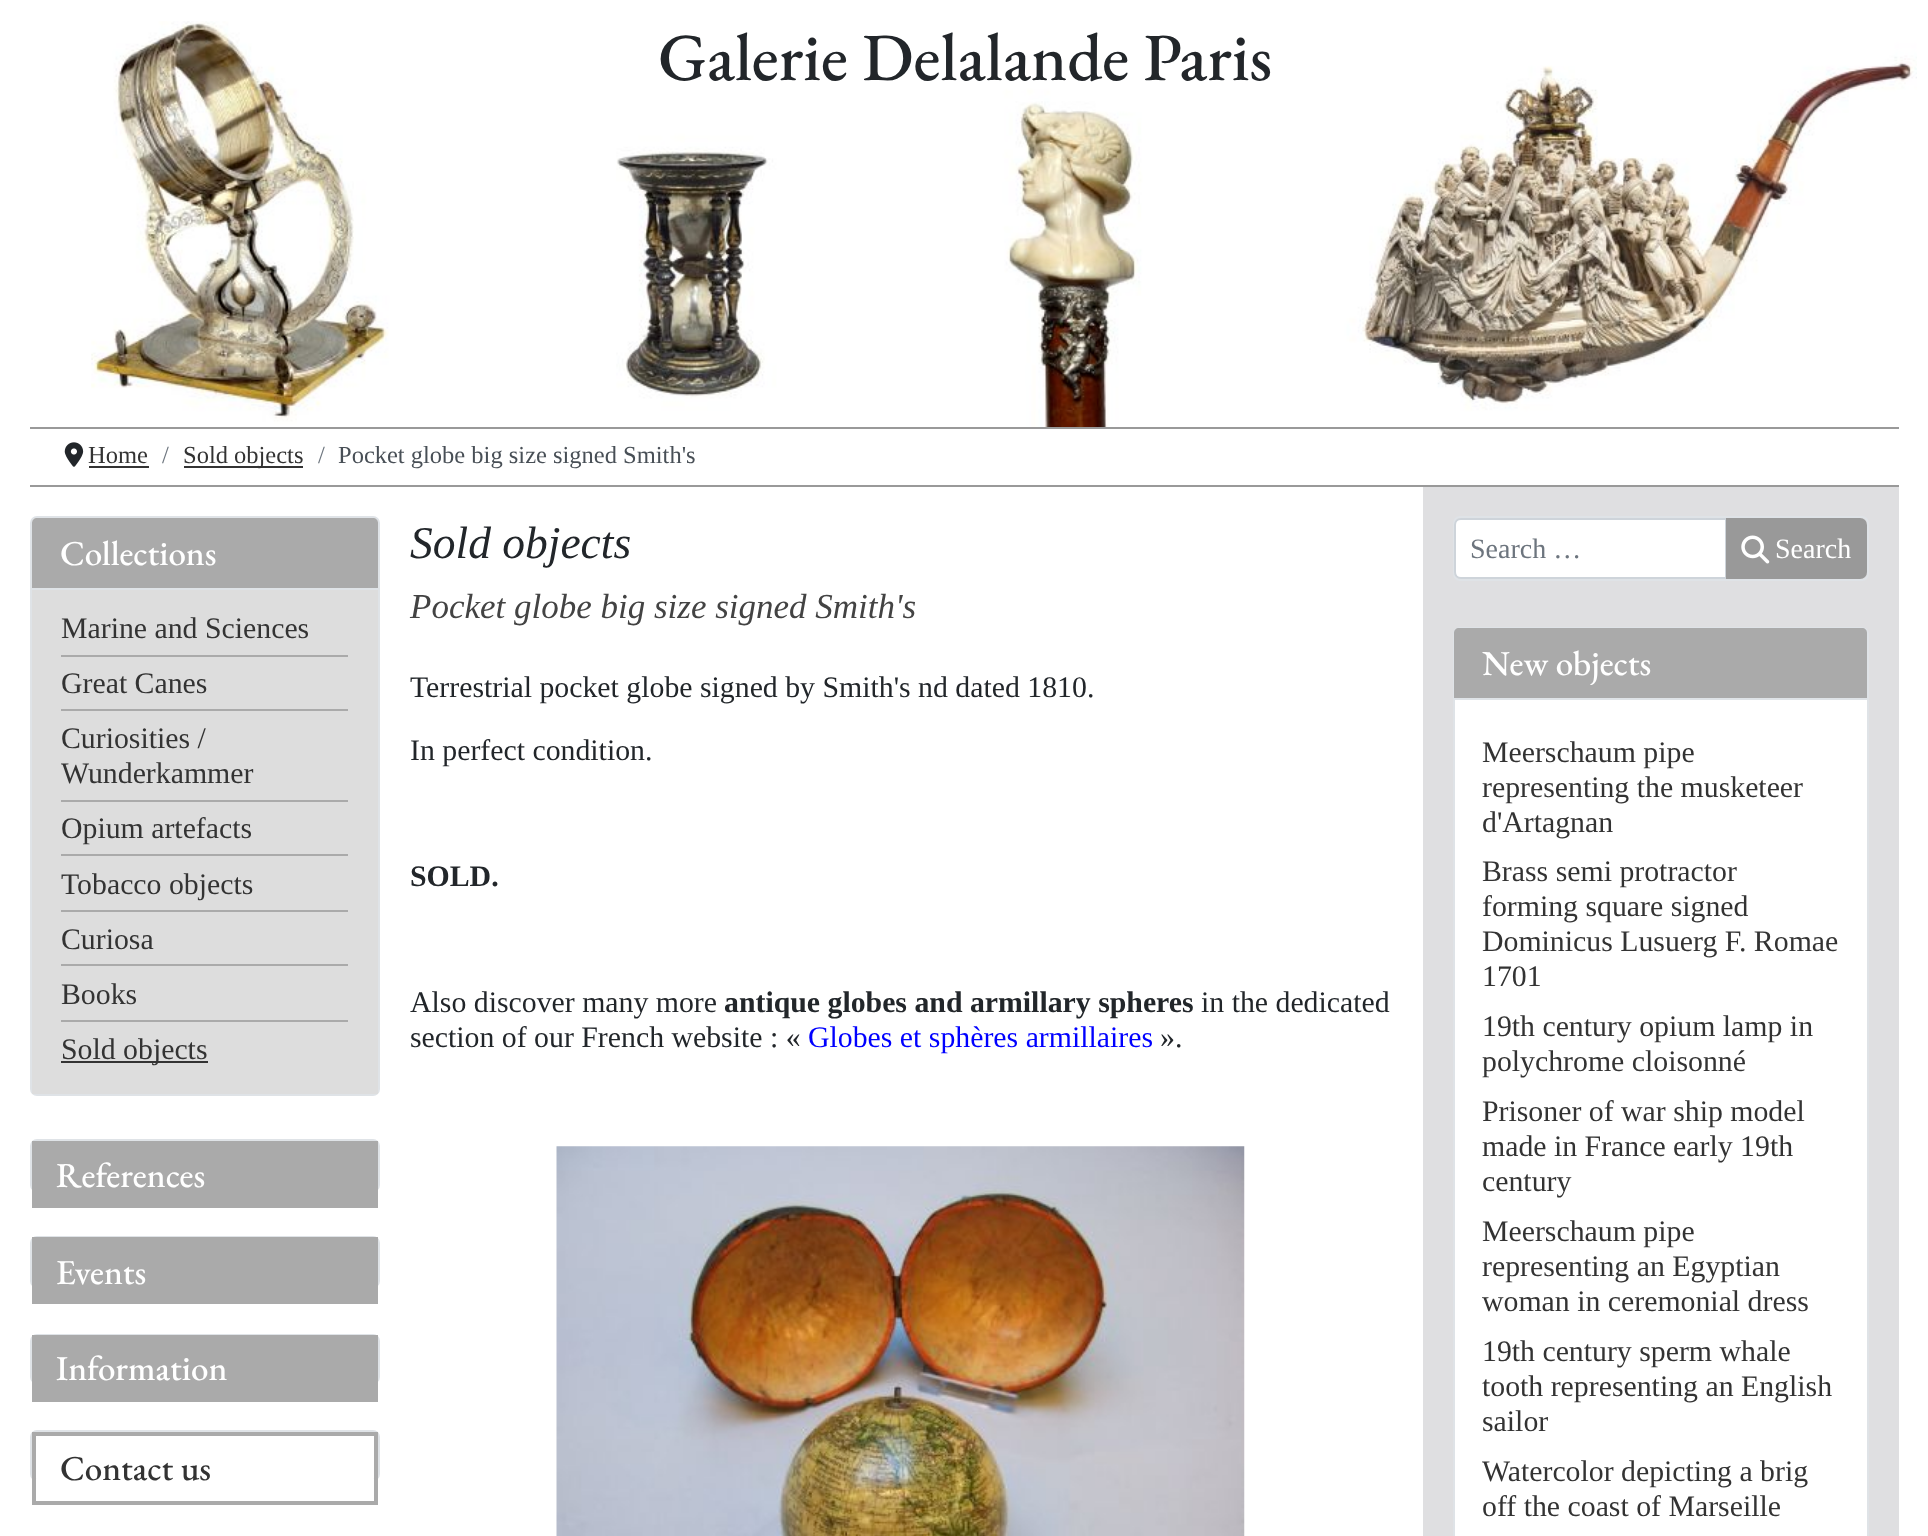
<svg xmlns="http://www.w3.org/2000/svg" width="1928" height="1536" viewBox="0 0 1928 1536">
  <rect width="100%" height="100%" fill="#ffffff"/>
  <image x="91" y="21" width="1826" height="406" href="img1.png"/>
  <text x="658" y="80" font-family="EB Garamond" font-size="67.5" font-weight="500" fill="#22262a">Galerie Delalande Paris</text>
  <rect x="30" y="427" width="1869" height="2" fill="#999999"/>
  <rect x="30" y="485" width="1869" height="2" fill="#999999"/>
  <image x="64" y="442" width="20" height="25" href="img2.png"/>
  <text x="88" y="463" font-family="Liberation Serif" font-size="24.5" fill="#333333">Home</text>
  <rect x="89" y="466" width="60" height="2" fill="#333333"/>
  <text x="162" y="463" font-family="Liberation Serif" font-size="24.5" fill="#6d757e">/</text>
  <rect x="184" y="466" width="119" height="2" fill="#333333"/>
  <text x="183" y="463" font-family="Liberation Serif" font-size="24.5" fill="#333333">Sold objects</text>
  <text x="318" y="463" font-family="Liberation Serif" font-size="24.5" fill="#6d757e">/</text>
  <text x="338" y="463" font-family="Liberation Serif" font-size="24.5" fill="#484f56">Pocket globe big size signed Smith's</text>
  <rect x="31" y="517" width="348" height="578" rx="6" fill="none" stroke="#dfe3e7" stroke-width="2"/>
  <path d="M37 518H373C376 518 378 520 378 523V590H32V523C32 520 34 518 37 518Z" fill="#aaaaaa"/>
  <rect x="32" y="588" width="346" height="2" fill="#dfe3e7"/>
  <text x="60" y="565" font-family="EB Garamond" font-size="35" font-weight="500" fill="#ffffff">Collections</text>
  <rect x="32" y="590" width="346" height="504" fill="#dddddd"/>
  <rect x="61" y="655" width="287" height="2" fill="#aaaaaa"/>
  <text x="61" y="638" font-family="Liberation Serif" font-size="29.8" fill="#333333">Marine and Sciences</text>
  <rect x="61" y="709" width="287" height="2" fill="#aaaaaa"/>
  <text x="61" y="693" font-family="Liberation Serif" font-size="29.8" fill="#333333">Great Canes</text>
  <rect x="61" y="800" width="287" height="2" fill="#aaaaaa"/>
  <text x="61" y="748" font-family="Liberation Serif" font-size="29.8" fill="#333333">Curiosities /</text>
  <text x="61" y="783" font-family="Liberation Serif" font-size="29.8" fill="#333333">Wunderkammer</text>
  <rect x="61" y="854" width="287" height="2" fill="#aaaaaa"/>
  <text x="61" y="838" font-family="Liberation Serif" font-size="29.8" fill="#333333">Opium artefacts</text>
  <rect x="61" y="910" width="287" height="2" fill="#aaaaaa"/>
  <text x="61" y="894" font-family="Liberation Serif" font-size="29.8" fill="#333333">Tobacco objects</text>
  <rect x="61" y="964" width="287" height="2" fill="#aaaaaa"/>
  <text x="61" y="949" font-family="Liberation Serif" font-size="29.8" fill="#333333">Curiosa</text>
  <rect x="61" y="1020" width="287" height="2" fill="#aaaaaa"/>
  <text x="61" y="1004" font-family="Liberation Serif" font-size="29.8" fill="#333333">Books</text>
  <rect x="61" y="1061" width="147" height="2" fill="#333333"/>
  <text x="61" y="1059" font-family="Liberation Serif" font-size="29.8" fill="#333333">Sold objects</text>
  <rect x="31" y="1140" width="348" height="51" rx="6" fill="none" stroke="#dfe3e7" stroke-width="2"/>
  <rect x="32" y="1141" width="346" height="67" fill="#aaaaaa"/>
  <text x="56" y="1187" font-family="EB Garamond" font-size="35" font-weight="500" fill="#ffffff">References</text>
  <rect x="31" y="1237" width="348" height="50" rx="6" fill="none" stroke="#dfe3e7" stroke-width="2"/>
  <rect x="32" y="1237" width="346" height="67" fill="#aaaaaa"/>
  <text x="56" y="1284" font-family="EB Garamond" font-size="35" font-weight="500" fill="#ffffff">Events</text>
  <rect x="31" y="1335" width="348" height="48" rx="6" fill="none" stroke="#dfe3e7" stroke-width="2"/>
  <rect x="32" y="1335" width="346" height="67" fill="#aaaaaa"/>
  <text x="56" y="1380" font-family="EB Garamond" font-size="35" font-weight="500" fill="#ffffff">Information</text>
  <rect x="31" y="1431" width="348" height="49" rx="6" fill="none" stroke="#dfe3e7" stroke-width="2"/>
  <rect x="36" y="1479" width="338" height="2" fill="#ffffff"/>
  <rect x="34" y="1434" width="342" height="69" fill="none" stroke="#aaaaaa" stroke-width="4"/>
  <text x="60" y="1480" font-family="EB Garamond" font-size="35" font-weight="500" fill="#333333">Contact us</text>
  <text x="410" y="558" font-family="Liberation Serif" font-size="45.5" font-style="italic" fill="#22262a">Sold objects</text>
  <text x="410" y="618" font-family="Liberation Serif" font-size="35" font-style="italic" fill="#434343">Pocket globe big size signed Smith's</text>
  <text x="410" y="697" font-family="Liberation Serif" font-size="29.8" fill="#22262a">Terrestrial pocket globe signed by Smith's nd dated 1810.</text>
  <text x="410" y="760" font-family="Liberation Serif" font-size="29.8" fill="#22262a">In perfect condition.</text>
  <text x="410" y="886" font-family="Liberation Serif" font-size="29.8" font-weight="bold" fill="#22262a">SOLD.</text>
  <text x="410" y="1012" font-family="Liberation Serif" font-size="29.8" fill="#22262a">Also discover many more</text>
  <text x="724" y="1012" font-family="Liberation Serif" font-size="29.8" font-weight="bold" fill="#22262a">antique globes and armillary spheres</text>
  <text x="1201" y="1012" font-family="Liberation Serif" font-size="29.8" fill="#22262a">in the dedicated</text>
  <text x="410" y="1047" font-family="Liberation Serif" font-size="29.8" fill="#22262a">section of our French website : «</text>
  <text x="808" y="1047" font-family="Liberation Serif" font-size="29.8" fill="#0000ff">Globes et sphères armillaires</text>
  <text x="1160" y="1047" font-family="Liberation Serif" font-size="29.8" fill="#22262a">».</text>
  <image x="556" y="1146" width="689" height="390" href="img3.png"/>
  <rect x="1423" y="487" width="476" height="1049" fill="#dfdfe1"/>
  <rect x="1454" y="517" width="414" height="63" rx="6" fill="none" stroke="#dfe3e7" stroke-width="2"/>
  <path d="M1461 519H1726V578H1461C1457.5 578 1455 575.5 1455 572V525C1455 521.5 1457.5 519 1461 519Z" fill="#ffffff" stroke="#ced4da" stroke-width="2"/>
  <text x="1470" y="558" font-family="Liberation Serif" font-size="28" fill="#6d757e">Search …</text>
  <path d="M1727 519H1860C1863.5 519 1866 521.5 1866 525V572C1866 575.5 1863.5 578 1860 578H1727Z" fill="#999999" stroke="#999999" stroke-width="2"/>
  <image x="1741" y="535" width="29" height="29" href="img4.png"/>
  <text x="1775" y="558" font-family="Liberation Serif" font-size="28" fill="#ffffff">Search</text>
  <rect x="1454" y="628" width="414" height="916" rx="6" fill="#ffffff" stroke="#dfe3e7" stroke-width="2"/>
  <path d="M1459 628H1862C1865 628 1867 630 1867 633V700H1454V633C1454 630 1456 628 1459 628Z" fill="#aaaaaa"/>
  <rect x="1454" y="698" width="413" height="2" fill="#dfe3e7"/>
  <text x="1482" y="675" font-family="EB Garamond" font-size="35" font-weight="500" fill="#ffffff">New objects</text>
  <text x="1482" y="762" font-family="Liberation Serif" font-size="29.8" fill="#333333">Meerschaum pipe</text>
  <text x="1482" y="797" font-family="Liberation Serif" font-size="29.8" fill="#333333">representing the musketeer</text>
  <text x="1482" y="832" font-family="Liberation Serif" font-size="29.8" fill="#333333">d'Artagnan</text>
  <text x="1482" y="881" font-family="Liberation Serif" font-size="29.8" fill="#333333">Brass semi protractor</text>
  <text x="1482" y="916" font-family="Liberation Serif" font-size="29.8" fill="#333333">forming square signed</text>
  <text x="1482" y="951" font-family="Liberation Serif" font-size="29.8" fill="#333333">Dominicus Lusuerg F. Romae</text>
  <text x="1482" y="986" font-family="Liberation Serif" font-size="29.8" fill="#333333">1701</text>
  <text x="1482" y="1036" font-family="Liberation Serif" font-size="29.8" fill="#333333">19th century opium lamp in</text>
  <text x="1482" y="1071" font-family="Liberation Serif" font-size="29.8" fill="#333333">polychrome cloisonné</text>
  <text x="1482" y="1121" font-family="Liberation Serif" font-size="29.8" fill="#333333">Prisoner of war ship model</text>
  <text x="1482" y="1156" font-family="Liberation Serif" font-size="29.8" fill="#333333">made in France early 19th</text>
  <text x="1482" y="1191" font-family="Liberation Serif" font-size="29.8" fill="#333333">century</text>
  <text x="1482" y="1241" font-family="Liberation Serif" font-size="29.8" fill="#333333">Meerschaum pipe</text>
  <text x="1482" y="1276" font-family="Liberation Serif" font-size="29.8" fill="#333333">representing an Egyptian</text>
  <text x="1482" y="1311" font-family="Liberation Serif" font-size="29.8" fill="#333333">woman in ceremonial dress</text>
  <text x="1482" y="1361" font-family="Liberation Serif" font-size="29.8" fill="#333333">19th century sperm whale</text>
  <text x="1482" y="1396" font-family="Liberation Serif" font-size="29.8" fill="#333333">tooth representing an English</text>
  <text x="1482" y="1431" font-family="Liberation Serif" font-size="29.8" fill="#333333">sailor</text>
  <text x="1482" y="1481" font-family="Liberation Serif" font-size="29.8" fill="#333333">Watercolor depicting a brig</text>
  <text x="1482" y="1516" font-family="Liberation Serif" font-size="29.8" fill="#333333">off the coast of Marseille</text>
</svg>
